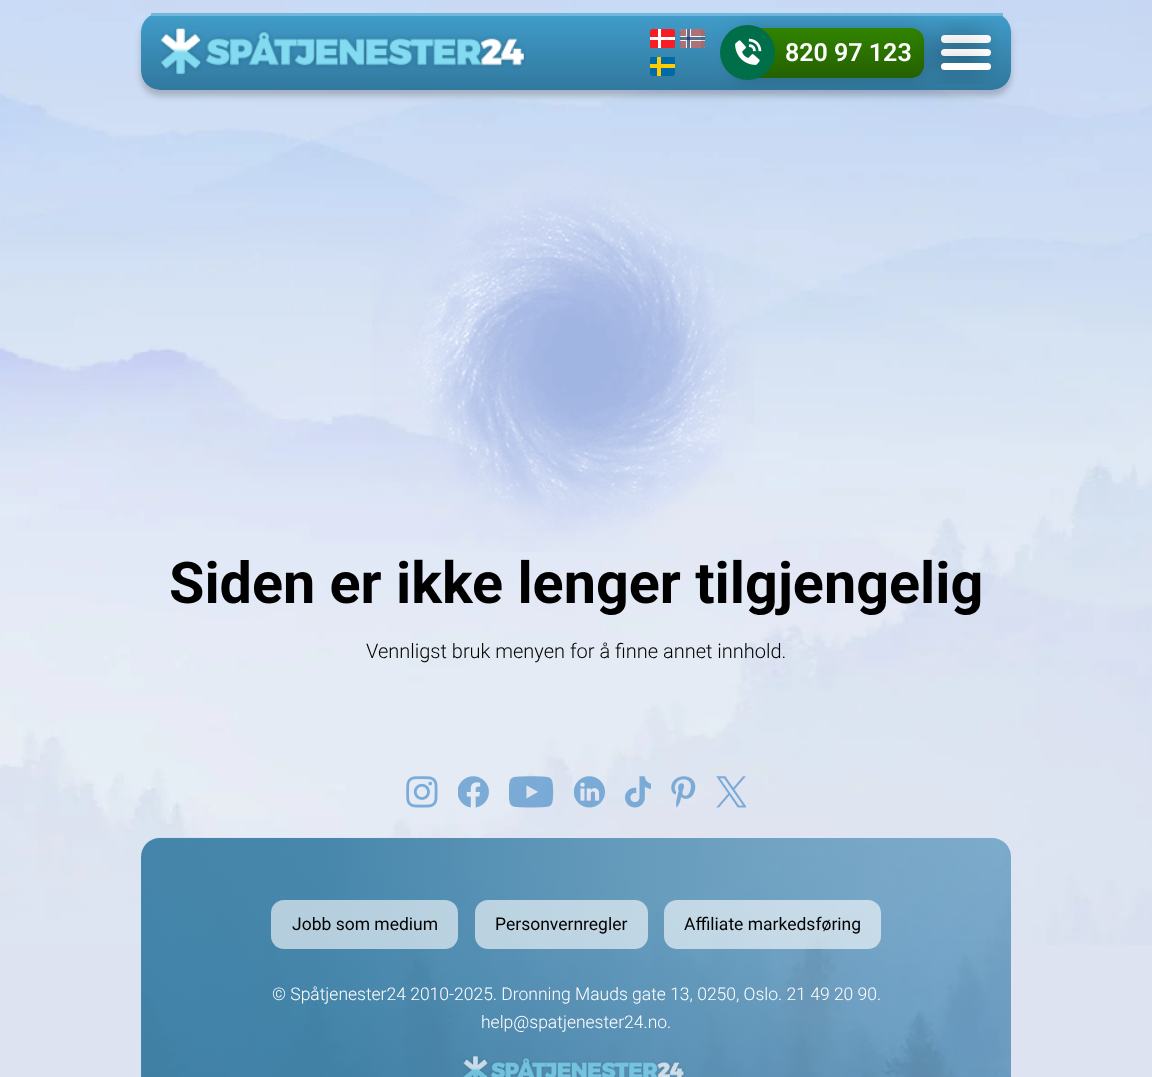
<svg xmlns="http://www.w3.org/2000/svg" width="1152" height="1077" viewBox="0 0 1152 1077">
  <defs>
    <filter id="blur1" x="-50%" y="-200%" width="200%" height="500%"><feGaussianBlur stdDeviation="3"/></filter>
    <clipPath id="clip1"><rect x="141" y="13" width="870" height="77" rx="19"/></clipPath>
    <linearGradient id="g1" gradientUnits="userSpaceOnUse" x1="576" y1="15" x2="576" y2="90"><stop offset="0" stop-color="#409cc9"/><stop offset="1" stop-color="#31789e"/></linearGradient>
    <clipPath id="clip2"><rect x="650" y="29" width="25" height="19"/></clipPath>
    <clipPath id="clip3"><path d="M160 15H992.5C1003 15 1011 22.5 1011 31V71C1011 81.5 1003 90 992.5 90H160C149.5 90 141 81.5 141 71V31C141 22.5 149.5 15 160 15Z"/></clipPath>
    <filter id="blur2" x="-50%" y="-200%" width="200%" height="500%"><feGaussianBlur stdDeviation="9.5"/></filter>
    <linearGradient id="g2" gradientUnits="userSpaceOnUse" x1="829" y1="27" x2="829" y2="78"><stop offset="0" stop-color="#318400"/><stop offset="1" stop-color="#246000"/></linearGradient>
    <filter id="blur3" x="-50%" y="-200%" width="200%" height="500%"><feGaussianBlur stdDeviation="12.5"/></filter>
    <linearGradient id="g3" gradientUnits="userSpaceOnUse" x1="141" y1="992" x2="1011" y2="992"><stop offset="0.2" stop-color="#31789e" stop-opacity="0.85"/><stop offset="1" stop-color="#31789e" stop-opacity="0.5"/></linearGradient>
  </defs>
  <rect width="100%" height="100%" fill="#dde3f1"/>
  <image x="0" y="0" width="1152" height="945" href="img1.png"/>
  <rect x="141" y="19" width="870" height="77" rx="19" fill="#000000" fill-opacity="0.2" filter="url(#blur1)"/>
  <g clip-path="url(#clip1)">
    <path d="M141 15H1011V71C1011 81.5 1002.5 90 992 90H160C149.5 90 141 81.5 141 71Z" fill="url(#g1)"/>
  </g>
  <rect x="151" y="13" width="852" height="3" fill="#71b7da"/>
  <image x="161" y="28" width="365" height="46" href="img2.png"/>
  <g clip-path="url(#clip2)">
    <path d="M652.5 29C651 29 650 30 650 31.5V46.5L650.5 48H674.5C675.5 46.5 675 38.5 675 36.5C675 29.5 676 29 669 29Z" fill="#fb1b22"/>
  </g>
  <rect x="650" y="37" width="25" height="3" fill="#ffffff"/>
  <rect x="658" y="29" width="3" height="19" fill="#ffffff"/>
  <image x="680" y="29" width="25" height="19" href="img3.png"/>
  <image x="650" y="57" width="25" height="19" href="img4.png"/>
  <g clip-path="url(#clip3)">
    <rect x="735" y="28" width="189" height="50" rx="13" fill="#000000" fill-opacity="0.2" filter="url(#blur2)"/>
  </g>
  <rect x="735" y="28" width="189" height="50" rx="13" fill="url(#g2)"/>
  <circle cx="747.5" cy="52.5" r="27.5" fill="#006e49"/>
  <image x="735" y="38" width="27" height="27" href="img5.png"/>
  <text x="785" y="61" font-family="Roboto" font-size="25" font-weight="600" fill="#ffffff">820 97 123</text>
  <g clip-path="url(#clip3)">
    <rect x="935" y="35" width="50" height="8" rx="4" fill="#000000" fill-opacity="0.5" filter="url(#blur3)"/>
  </g>
  <rect x="941" y="35" width="50" height="8" rx="4" fill="#ffffff"/>
  <rect x="935" y="49" width="50" height="7" rx="3.5" fill="#000000" fill-opacity="0.5" filter="url(#blur3)"/>
  <rect x="941" y="49" width="50" height="7" rx="3.5" fill="#ffffff"/>
  <g clip-path="url(#clip3)">
    <rect x="935" y="63" width="50" height="7" rx="3.5" fill="#000000" fill-opacity="0.5" filter="url(#blur3)"/>
  </g>
  <rect x="941" y="63" width="50" height="7" rx="3.5" fill="#ffffff"/>
  <image x="372" y="164" width="383" height="388" href="img6.png"/>
  <text x="169" y="603" font-family="Roboto" font-size="57.5" font-weight="bold" fill="#000000">Siden er ikke lenger tilgjengelig</text>
  <text x="366" y="658" font-family="Roboto" font-size="20" font-weight="300" fill="#000000">Vennligst bruk menyen for å finne annet innhold.</text>
  <image x="406" y="776" width="32" height="32" href="img7.png"/>
  <image x="458" y="776" width="31" height="32" href="img8.png"/>
  <image x="509" y="776" width="45" height="32" href="img9.png"/>
  <image x="574" y="776" width="31" height="32" href="img10.png"/>
  <image x="625" y="776" width="26" height="32" href="img11.png"/>
  <image x="671" y="776" width="25" height="32" href="img12.png"/>
  <image x="716" y="776" width="30" height="32" href="img13.png"/>
  <image x="141" y="837" width="870" height="240" href="img14.png"/>
  <rect x="141" y="838" width="870" height="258" rx="19" fill="url(#g3)"/>
  <rect x="271" y="900" width="187" height="49" rx="13" fill="#ffffff" fill-opacity="0.6"/>
  <text x="292" y="930" font-family="Roboto" font-size="17.5" fill="#000000">Jobb som medium</text>
  <rect x="475" y="900" width="173" height="49" rx="13" fill="#ffffff" fill-opacity="0.6"/>
  <text x="495" y="930" font-family="Roboto" font-size="17.5" fill="#000000">Personvernregler</text>
  <rect x="664" y="900" width="217" height="49" rx="13" fill="#ffffff" fill-opacity="0.6"/>
  <text x="684" y="930" font-family="Roboto" font-size="17.5" fill="#000000">Affiliate markedsføring</text>
  <text x="272" y="1000" font-family="Roboto" font-size="17.5" font-weight="300" fill="#ffffff">© Spåtjenester24 2010-2025. Dronning Mauds gate 13, 0250, Oslo. 21 49 20 90.</text>
  <text x="481" y="1028" font-family="Roboto" font-size="17.5" font-weight="300" fill="#ffffff">help@spatjenester24.no.</text>
  <image x="463" y="1056" width="222" height="21" href="img15.png"/>
</svg>
